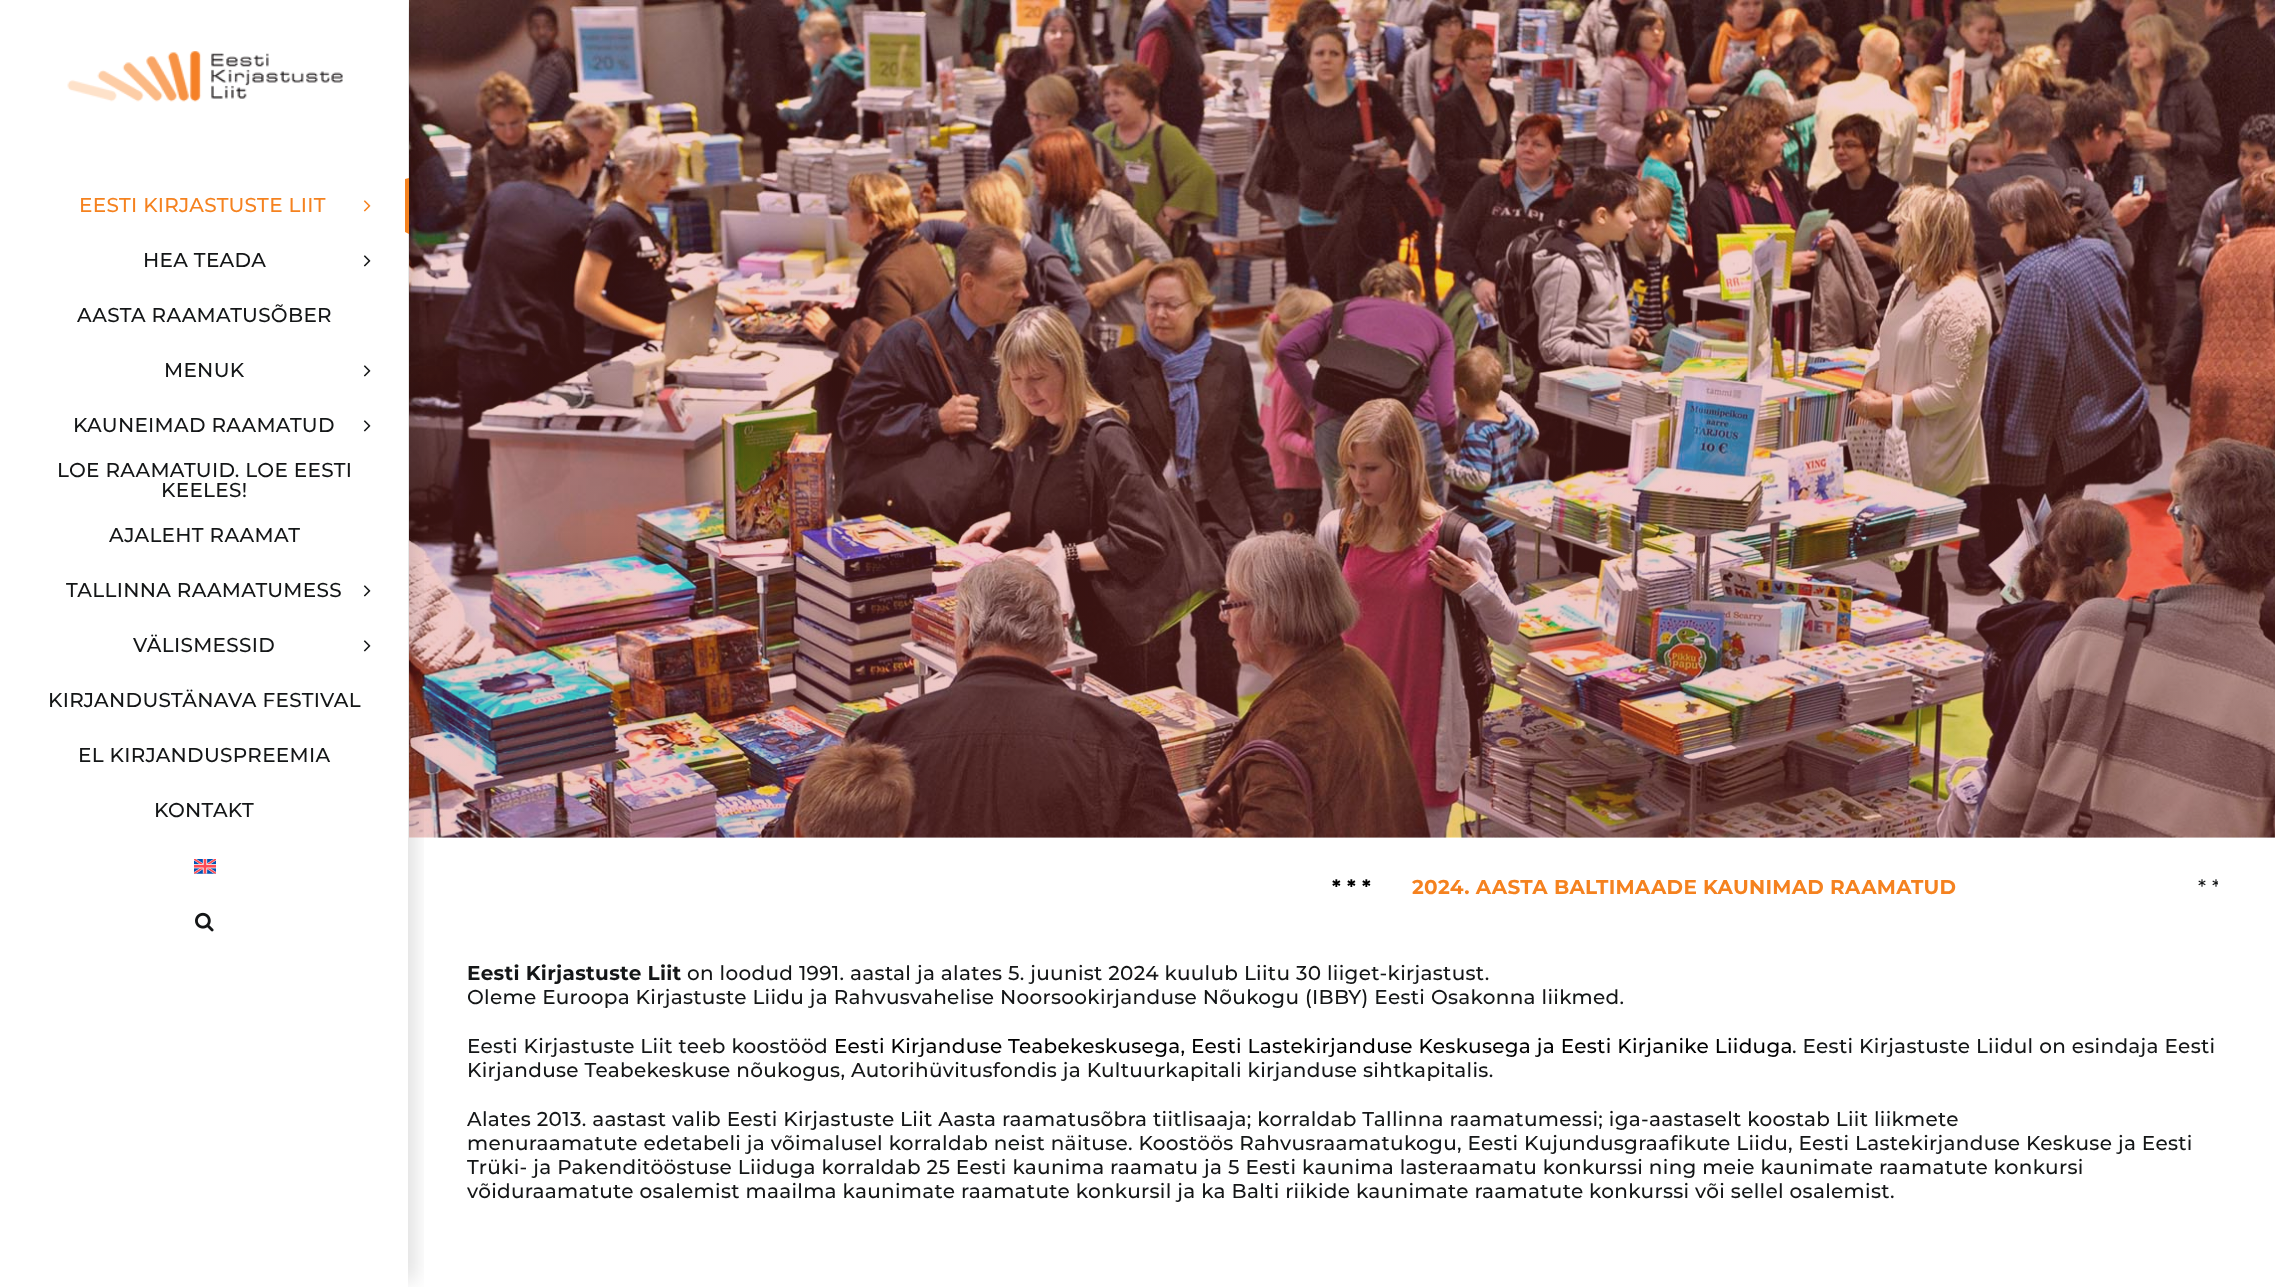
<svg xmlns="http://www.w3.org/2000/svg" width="2275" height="1287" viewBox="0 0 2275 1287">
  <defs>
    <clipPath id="clip1"><path d="M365 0H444V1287H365ZM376 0H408V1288H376Z" clip-rule="evenodd"/></clipPath>
    <filter id="blur1" x="-50%" y="-200%" width="200%" height="500%"><feGaussianBlur stdDeviation="9.5"/></filter>
    <clipPath id="clip2"><rect x="466" y="875" width="1752" height="24"/></clipPath>
  </defs>
  <rect width="100%" height="100%" fill="#ffffff"/>
  <image x="67" y="51" width="276" height="51" href="img1.png"/>
  <image x="409" y="0" width="1866" height="838" href="img6.png"/>
  <g clip-path="url(#clip1)">
    <rect x="395" y="6" width="19" height="1275" fill="#000000" fill-opacity="0.14" filter="url(#blur1)"/>
  </g>
  <path d="M409 178V234L405 232V179Z" fill="#f5821f"/>
  <text x="79" y="212" font-family="Montserrat" font-size="20" font-weight="500" letter-spacing="0.3" fill="#f5821f">EESTI KIRJASTUSTE LIIT</text>
  <image x="363" y="200" width="8" height="12" href="img2.png"/>
  <text x="143" y="267" font-family="Montserrat" font-size="20" font-weight="500" letter-spacing="0.3" fill="#141617">HEA TEADA</text>
  <image x="363" y="255" width="8" height="12" href="img3.png"/>
  <text x="77" y="322" font-family="Montserrat" font-size="20" font-weight="500" letter-spacing="0.3" fill="#141617">AASTA RAAMATUSÕBER</text>
  <text x="164" y="377" font-family="Montserrat" font-size="20" font-weight="500" letter-spacing="0.3" fill="#141617">MENUK</text>
  <image x="363" y="365" width="8" height="12" href="img3.png"/>
  <text x="73" y="432" font-family="Montserrat" font-size="20" font-weight="500" letter-spacing="0.3" fill="#141617">KAUNEIMAD RAAMATUD</text>
  <image x="363" y="420" width="8" height="12" href="img3.png"/>
  <text x="57" y="477" font-family="Montserrat" font-size="20" font-weight="500" letter-spacing="0.3" fill="#141617">LOE RAAMATUID. LOE EESTI</text>
  <text x="161" y="497" font-family="Montserrat" font-size="20" font-weight="500" letter-spacing="0.3" fill="#141617">KEELES!</text>
  <text x="109" y="542" font-family="Montserrat" font-size="20" font-weight="500" letter-spacing="0.3" fill="#141617">AJALEHT RAAMAT</text>
  <text x="66" y="597" font-family="Montserrat" font-size="20" font-weight="500" letter-spacing="0.3" fill="#141617">TALLINNA RAAMATUMESS</text>
  <image x="363" y="585" width="8" height="12" href="img3.png"/>
  <text x="133" y="652" font-family="Montserrat" font-size="20" font-weight="500" letter-spacing="0.3" fill="#141617">VÄLISMESSID</text>
  <image x="363" y="640" width="8" height="12" href="img3.png"/>
  <text x="48" y="707" font-family="Montserrat" font-size="20" font-weight="500" letter-spacing="0.3" fill="#141617">KIRJANDUSTÄNAVA FESTIVAL</text>
  <text x="78" y="762" font-family="Montserrat" font-size="20" font-weight="500" letter-spacing="0.3" fill="#141617">EL KIRJANDUSPREEMIA</text>
  <text x="154" y="817" font-family="Montserrat" font-size="20" font-weight="500" letter-spacing="0.3" fill="#141617">KONTAKT</text>
  <image x="194" y="859" width="22" height="15" href="img4.png"/>
  <image x="195" y="912" width="19" height="20" href="img5.png"/>
  <text x="1332" y="894" font-family="Montserrat" font-size="20" font-weight="bold" letter-spacing="0.3" fill="#000000">* * *</text>
  <text x="1412" y="894" font-family="Montserrat" font-size="20" font-weight="bold" letter-spacing="0.3" fill="#f5821f">2024. AASTA BALTIMAADE KAUNIMAD RAAMATUD</text>
  <g clip-path="url(#clip2)">
    <text x="2198" y="894" font-family="Montserrat" font-size="20" font-weight="500" letter-spacing="0.3" fill="#141617">* *</text>
  </g>
  <text x="467" y="980" font-family="Montserrat" font-size="20" font-weight="bold" letter-spacing="0.3" fill="#141617">Eesti Kirjastuste Liit</text>
  <text x="687" y="980" font-family="Montserrat" font-size="20" font-weight="500" letter-spacing="0.3" fill="#141617">on loodud 1991. aastal ja alates 5. juunist 2024 kuulub Liitu 30 liiget-kirjastust.</text>
  <text x="467" y="1004" font-family="Montserrat" font-size="20" font-weight="500" letter-spacing="0.3" fill="#141617">Oleme Euroopa Kirjastuste Liidu ja Rahvusvahelise Noorsookirjanduse Nõukogu (IBBY) Eesti Osakonna liikmed.</text>
  <text x="467" y="1053" font-family="Montserrat" font-size="20" font-weight="500" letter-spacing="0.3" fill="#141617">Eesti Kirjastuste Liit teeb koostööd</text>
  <text x="834" y="1053" font-family="Montserrat" font-size="20" font-weight="500" letter-spacing="0.3" fill="#000000">Eesti Kirjanduse Teabekeskusega, Eesti Lastekirjanduse Keskusega ja Eesti Kirjanike Liiduga</text>
  <text x="1792" y="1053" font-family="Montserrat" font-size="20" font-weight="500" letter-spacing="0.3" fill="#141617">. Eesti Kirjastuste Liidul on esindaja Eesti</text>
  <text x="467" y="1077" font-family="Montserrat" font-size="20" font-weight="500" letter-spacing="0.3" fill="#141617">Kirjanduse Teabekeskuse nõukogus, Autorihüvitusfondis ja Kultuurkapitali kirjanduse sihtkapitalis.</text>
  <text x="467" y="1126" font-family="Montserrat" font-size="20" font-weight="500" letter-spacing="0.3" fill="#141617">Alates 2013. aastast valib Eesti Kirjastuste Liit Aasta raamatusõbra tiitlisaaja; korraldab Tallinna raamatumessi; iga-aastaselt koostab Liit liikmete</text>
  <text x="467" y="1150" font-family="Montserrat" font-size="20" font-weight="500" letter-spacing="0.3" fill="#141617">menuraamatute edetabeli ja võimalusel korraldab neist näituse. Koostöös Rahvusraamatukogu, Eesti Kujundusgraafikute Liidu, Eesti Lastekirjanduse Keskuse ja Eesti</text>
  <text x="467" y="1174" font-family="Montserrat" font-size="20" font-weight="500" letter-spacing="0.3" fill="#141617">Trüki- ja Pakenditööstuse Liiduga korraldab 25 Eesti kaunima raamatu ja 5 Eesti kaunima lasteraamatu konkurssi ning meie kaunimate raamatute konkursi</text>
  <text x="467" y="1198" font-family="Montserrat" font-size="20" font-weight="500" letter-spacing="0.3" fill="#141617">võiduraamatute osalemist maailma kaunimate raamatute konkursil ja ka Balti riikide kaunimate raamatute konkurssi või sellel osalemist.</text>
</svg>
